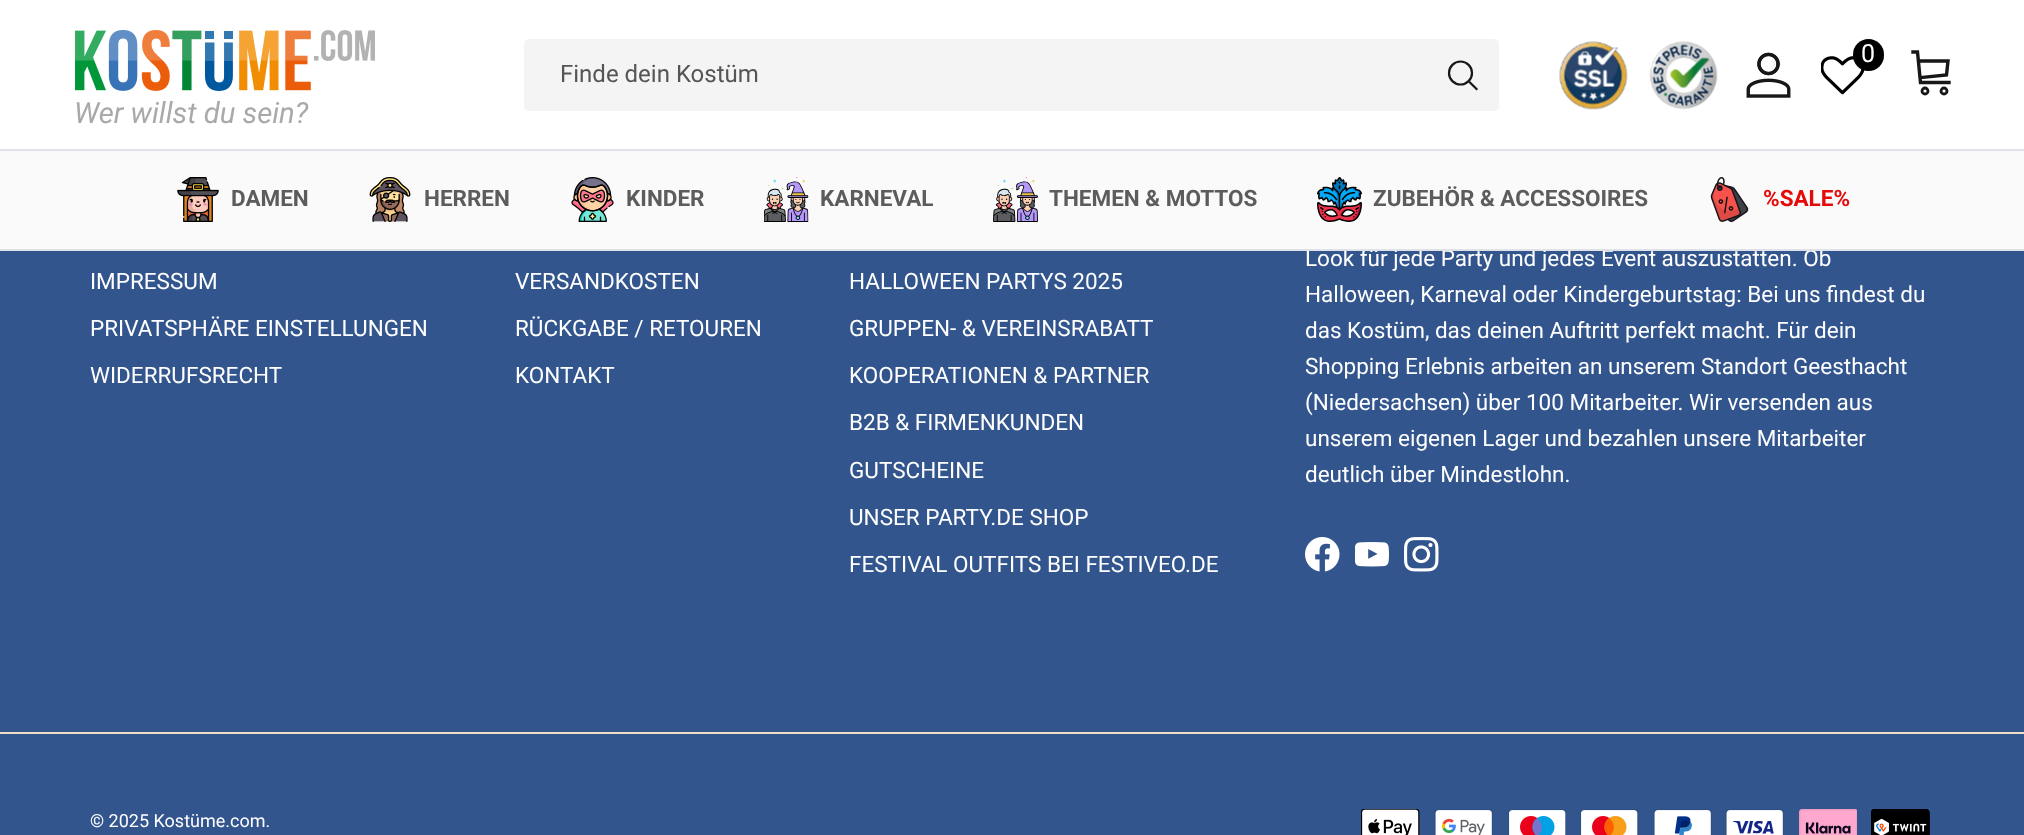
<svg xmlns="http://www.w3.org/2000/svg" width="2024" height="835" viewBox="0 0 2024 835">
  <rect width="100%" height="100%" fill="#32558d"/>
  <rect x="0" y="0" width="2024" height="149" fill="#ffffff"/>
  <rect x="0" y="149" width="2024" height="2" fill="#dfe3e8"/>
  <image x="1559" y="41" width="69" height="69" href="img1.png"/>
  <image x="1649" y="41" width="69" height="69" href="img2.png"/>
  <image x="1746" y="52" width="45" height="46" href="img3.png"/>
  <image x="1821" y="56" width="44" height="39" href="img4.png"/>
  <rect x="1853" y="39" width="31" height="32" rx="15.5" fill="#000000"/>
  <text x="1861" y="62" font-family="Roboto" font-size="25" fill="#ffffff">0</text>
  <path d="M1913 52H1917.5L1920.5 82.5H1949M1919 61H1948L1946.5 75L1922 77.5" fill="none" stroke="#171717" stroke-width="3.4" stroke-linecap="square"/>
  <circle cx="1925" cy="91" r="3" fill="none" stroke="#171717" stroke-width="2.8"/>
  <circle cx="1944" cy="91" r="3" fill="none" stroke="#171717" stroke-width="2.8"/>
  <rect x="524" y="39" width="975" height="72" rx="5" fill="#f4f4f4"/>
  <text x="560" y="82" font-family="Roboto" font-size="24" fill="#555555">Finde dein Kostüm</text>
  <circle cx="1460.5" cy="73" r="11.5" fill="none" stroke="#171717" stroke-width="2.2"/>
  <path d="M1470 82.5L1476.5 89" fill="none" stroke="#171717" stroke-width="2.2" stroke-linecap="square"/>
  <image x="75" y="30" width="300" height="61" href="img5.png"/>
  <text x="74" y="123" font-family="Roboto" font-size="29.25" font-style="italic" fill="#a9a9a9">Wer willst du sein?</text>
  <text x="1305" y="266" font-family="Roboto" font-size="22.5" fill="#ffffff">Look für jede Party und jedes Event auszustatten. Ob</text>
  <rect x="0" y="249" width="2024" height="2" fill="#dfe3e8"/>
  <rect x="0" y="151" width="2024" height="98" fill="#fafafa"/>
  <image x="177" y="177" width="42" height="45" href="img6.png"/>
  <text x="231" y="206" font-family="Roboto" font-size="22.5" font-weight="bold" fill="#5c5c5c">DAMEN</text>
  <image x="369" y="177" width="42" height="45" href="img7.png"/>
  <text x="424" y="206" font-family="Roboto" font-size="22.5" font-weight="bold" fill="#5c5c5c">HERREN</text>
  <image x="571" y="177" width="43" height="45" href="img8.png"/>
  <text x="626" y="206" font-family="Roboto" font-size="22.5" font-weight="bold" fill="#5c5c5c">KINDER</text>
  <image x="764" y="177" width="45" height="45" href="img9.png"/>
  <text x="820" y="206" font-family="Roboto" font-size="22.5" font-weight="bold" fill="#5c5c5c">KARNEVAL</text>
  <image x="993" y="177" width="45" height="45" href="img10.png"/>
  <text x="1049" y="206" font-family="Roboto" font-size="22.5" font-weight="bold" fill="#5c5c5c">THEMEN &amp; MOTTOS</text>
  <image x="1317" y="177" width="45" height="45" href="img11.png"/>
  <text x="1373" y="206" font-family="Roboto" font-size="22.5" font-weight="bold" fill="#5c5c5c">ZUBEHÖR &amp; ACCESSOIRES</text>
  <image x="1710" y="177" width="39" height="45" href="img12.png"/>
  <text x="1763" y="206" font-family="Roboto" font-size="22.5" font-weight="bold" fill="#e5090a">%SALE%</text>
  <text x="90" y="289" font-family="Roboto" font-size="22.5" fill="#ffffff">IMPRESSUM</text>
  <text x="90" y="336" font-family="Roboto" font-size="22.5" fill="#ffffff">PRIVATSPHÄRE EINSTELLUNGEN</text>
  <text x="90" y="383" font-family="Roboto" font-size="22.5" fill="#ffffff">WIDERRUFSRECHT</text>
  <text x="515" y="289" font-family="Roboto" font-size="22.5" fill="#ffffff">VERSANDKOSTEN</text>
  <text x="515" y="336" font-family="Roboto" font-size="22.5" fill="#ffffff">RÜCKGABE / RETOUREN</text>
  <text x="515" y="383" font-family="Roboto" font-size="22.5" fill="#ffffff">KONTAKT</text>
  <text x="849" y="289" font-family="Roboto" font-size="22.5" fill="#ffffff">HALLOWEEN PARTYS 2025</text>
  <text x="849" y="336" font-family="Roboto" font-size="22.5" fill="#ffffff">GRUPPEN- &amp; VEREINSRABATT</text>
  <text x="849" y="383" font-family="Roboto" font-size="22.5" fill="#ffffff">KOOPERATIONEN &amp; PARTNER</text>
  <text x="849" y="430" font-family="Roboto" font-size="22.5" fill="#ffffff">B2B &amp; FIRMENKUNDEN</text>
  <text x="849" y="478" font-family="Roboto" font-size="22.5" fill="#ffffff">GUTSCHEINE</text>
  <text x="849" y="525" font-family="Roboto" font-size="22.5" fill="#ffffff">UNSER PARTY.DE SHOP</text>
  <text x="849" y="572" font-family="Roboto" font-size="22.5" fill="#ffffff">FESTIVAL OUTFITS BEI FESTIVEO.DE</text>
  <text x="1305" y="302" font-family="Roboto" font-size="22.5" fill="#ffffff">Halloween, Karneval oder Kindergeburtstag: Bei uns findest du</text>
  <text x="1305" y="338" font-family="Roboto" font-size="22.5" fill="#ffffff">das Kostüm, das deinen Auftritt perfekt macht. Für dein</text>
  <text x="1305" y="374" font-family="Roboto" font-size="22.5" fill="#ffffff">Shopping Erlebnis arbeiten an unserem Standort Geesthacht</text>
  <text x="1305" y="410" font-family="Roboto" font-size="22.5" fill="#ffffff">(Niedersachsen) über 100 Mitarbeiter. Wir versenden aus</text>
  <text x="1305" y="446" font-family="Roboto" font-size="22.5" fill="#ffffff">unserem eigenen Lager und bezahlen unsere Mitarbeiter</text>
  <text x="1305" y="482" font-family="Roboto" font-size="22.5" fill="#ffffff">deutlich über Mindestlohn.</text>
  <image x="1305" y="537" width="35" height="35" href="img13.png"/>
  <image x="1355" y="542" width="34" height="25" href="img14.png"/>
  <image x="1404" y="537" width="35" height="35" href="img15.png"/>
  <rect x="0" y="732" width="2024" height="2" fill="#efdfc7"/>
  <text x="90" y="827" font-family="Roboto" font-size="18" fill="#ffffff">© 2025 Kostüme.com.</text>
  <image x="1361" y="809" width="59" height="26" href="img16.png"/>
  <image x="1434" y="809" width="59" height="26" href="img17.png"/>
  <image x="1508" y="809" width="58" height="26" href="img18.png"/>
  <image x="1580" y="809" width="59" height="26" href="img19.png"/>
  <image x="1653" y="809" width="59" height="26" href="img20.png"/>
  <image x="1725" y="809" width="59" height="26" href="img21.png"/>
  <image x="1799" y="809" width="58" height="26" href="img22.png"/>
  <image x="1871" y="809" width="59" height="26" href="img23.png"/>
</svg>
